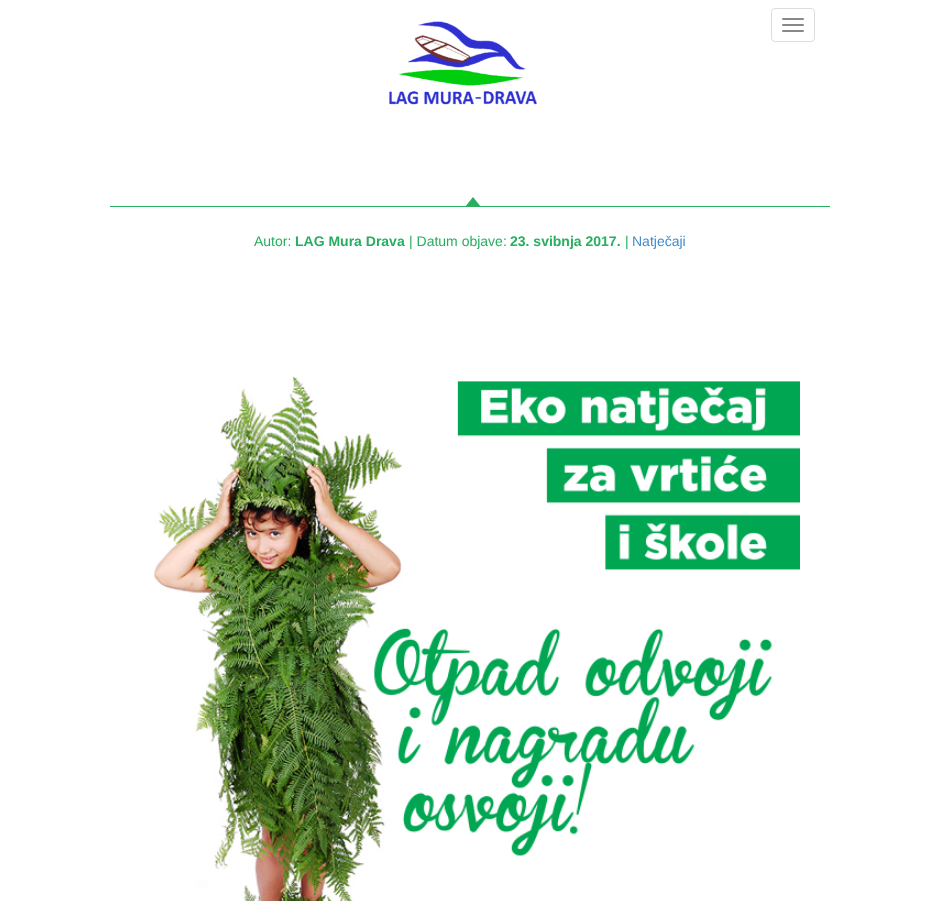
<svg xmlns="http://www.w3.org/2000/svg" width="940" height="901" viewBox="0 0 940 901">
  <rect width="100%" height="100%" fill="#ffffff"/>
  <image x="389" y="21" width="148" height="84" href="img1.png"/>
  <rect x="771.5" y="8.5" width="43" height="33" rx="3.5" fill="none" stroke="#dddddd"/>
  <rect x="782" y="18" width="22" height="2" rx="1" fill="#888888"/>
  <rect x="782" y="24" width="22" height="2" rx="1" fill="#888888"/>
  <rect x="782" y="30" width="22" height="2" rx="1" fill="#888888"/>
  <rect x="110" y="206" width="720" height="1" fill="#27ae60"/>
  <path d="M481 207H465L473 197Z" fill="#27ae60"/>
  <text x="254" y="246" font-family="Liberation Sans" font-size="14" fill="#27ae60">Autor:</text>
  <text x="295" y="246" font-family="Liberation Sans" font-size="14" font-weight="bold" fill="#27ae60">LAG Mura Drava</text>
  <text x="409" y="246" font-family="Liberation Sans" font-size="14" fill="#27ae60">| Datum objave:</text>
  <text x="510" y="246" font-family="Liberation Sans" font-size="14" font-weight="bold" fill="#27ae60">23. svibnja 2017.</text>
  <text x="625" y="246" font-family="Liberation Sans" font-size="14" fill="#27ae60">|</text>
  <text x="632" y="246" font-family="Liberation Sans" font-size="14" fill="#428bca">Natječaji</text>
  <image x="153" y="376" width="647" height="525" href="img2.png"/>
</svg>
